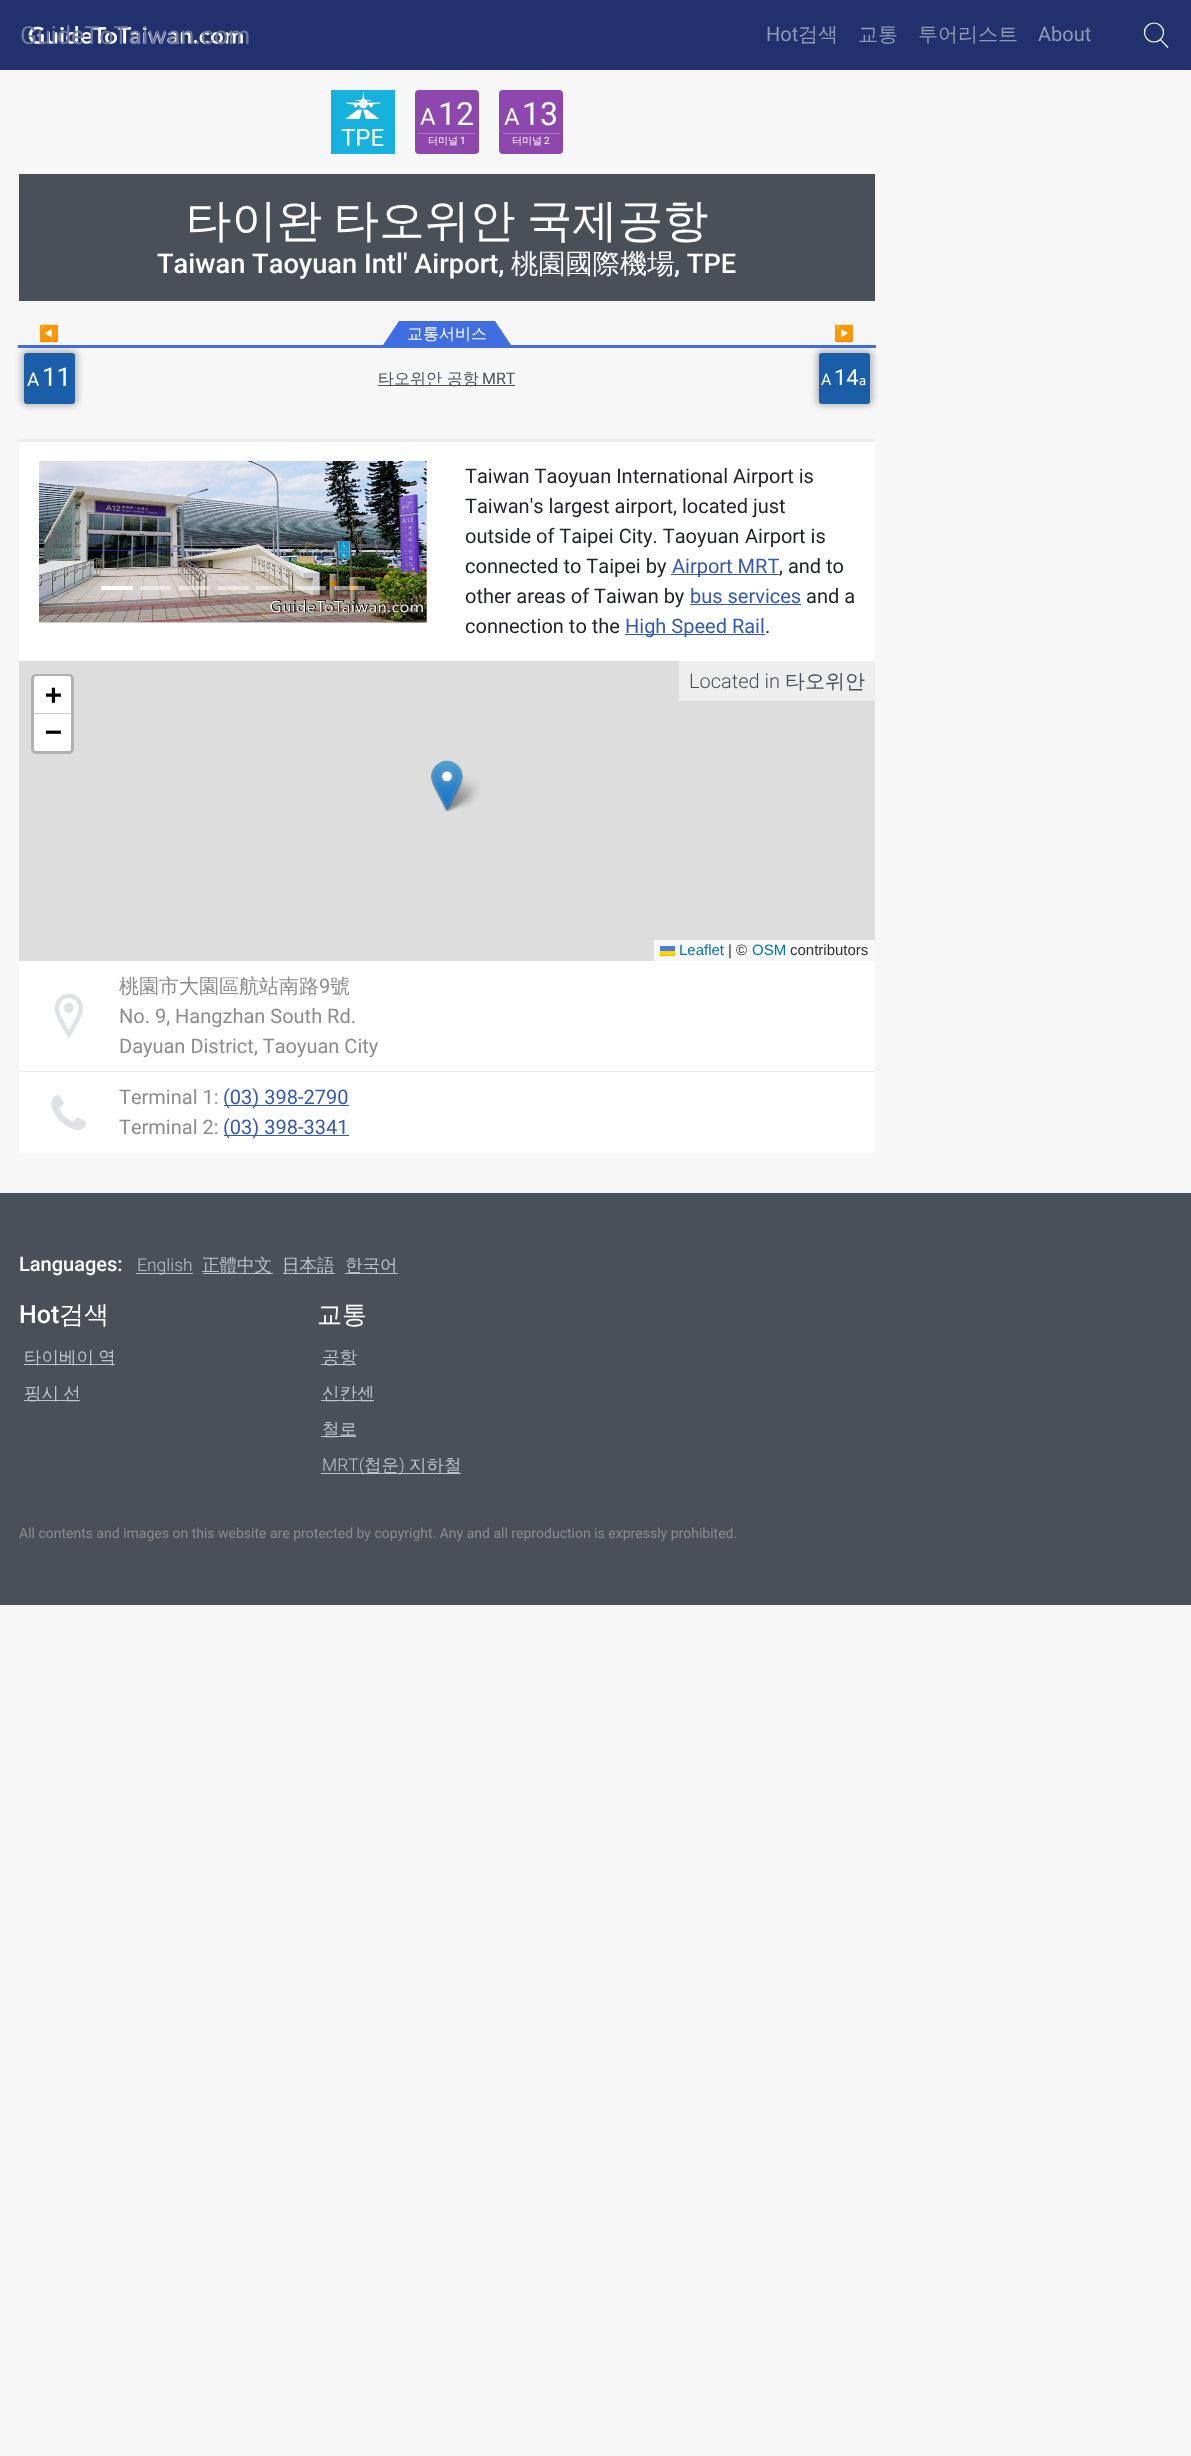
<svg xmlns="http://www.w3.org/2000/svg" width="1191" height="2456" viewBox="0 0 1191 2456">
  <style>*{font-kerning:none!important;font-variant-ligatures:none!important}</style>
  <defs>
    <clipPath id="clip1"><path d="M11 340H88V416H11ZM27 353H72C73.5 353 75 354.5 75 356V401C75 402.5 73.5 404 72 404H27C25.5 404 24 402.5 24 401V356C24 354.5 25.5 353 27 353Z" clip-rule="evenodd"/></clipPath>
    <filter id="blur1" x="-50%" y="-200%" width="200%" height="500%"><feGaussianBlur stdDeviation="3"/></filter>
    <clipPath id="clip2"><path d="M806 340H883V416H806ZM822 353H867C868.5 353 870 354.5 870 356V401C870 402.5 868.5 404 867 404H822C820.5 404 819 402.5 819 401V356C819 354.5 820.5 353 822 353Z" clip-rule="evenodd"/></clipPath>
  </defs>
  <rect width="100%" height="100%" fill="#f7f7f8"/>
  <rect x="0" y="0" width="1191" height="70" fill="#21316d"/>
  <image x="28" y="26" width="215" height="18" href="img1.png"/>
  <text x="20" y="44" font-family="Roboto" font-size="25" fill="#707aa1">GuideToTaiwan.com</text>
  <text x="766" y="41" font-family="Roboto" font-size="20" fill="#9098b6">Hot</text>
  <text x="798" y="41" font-family="WenQuanYi Zen Hei" font-size="20" font-weight="500" fill="#9098b6">검색</text>
  <text x="858" y="41" font-family="WenQuanYi Zen Hei" font-size="20" font-weight="500" fill="#9098b6">교통</text>
  <text x="918" y="41" font-family="WenQuanYi Zen Hei" font-size="20" font-weight="500" fill="#9098b6">투어리스트</text>
  <text x="1038" y="41" font-family="Roboto" font-size="20" fill="#9098b6">About</text>
  <circle cx="1154" cy="32.5" r="9.5" fill="none" stroke="#ffffff" stroke-width="1.2"/>
  <path d="M1160.5 39L1168.5 47L1167.5 48L1160 40Z" fill="#ffffff" fill-rule="evenodd"/>
  <rect x="331" y="90" width="64" height="64" fill="#17b1dd"/>
  <image x="345" y="92" width="36" height="27" href="img2.png"/>
  <text x="341" y="146" font-family="Roboto" font-size="24" fill="#ffffff">TPE</text>
  <rect x="415" y="90" width="64" height="64" rx="4" fill="#8e47ad"/>
  <text x="420" y="125" font-family="Roboto" font-size="24" fill="#ffffff">A</text>
  <text x="438" y="125" font-family="Roboto" font-size="32" fill="#ffffff">12</text>
  <rect x="418" y="133" width="57" height="1" fill="#aa75c2"/>
  <text x="428" y="144" font-family="WenQuanYi Zen Hei" font-size="10" font-weight="500" fill="#ffffff">터미널</text>
  <text x="460" y="144" font-family="Roboto" font-size="10" fill="#ffffff">1</text>
  <rect x="499" y="90" width="64" height="64" rx="4" fill="#8e47ad"/>
  <text x="504" y="125" font-family="Roboto" font-size="24" fill="#ffffff">A</text>
  <text x="522" y="125" font-family="Roboto" font-size="32" fill="#ffffff">13</text>
  <rect x="503" y="133" width="57" height="1" fill="#aa75c2"/>
  <text x="512" y="144" font-family="WenQuanYi Zen Hei" font-size="10" font-weight="500" fill="#ffffff">터미널</text>
  <text x="544" y="144" font-family="Roboto" font-size="10" fill="#ffffff">2</text>
  <rect x="19" y="174" width="856" height="127" fill="#495057"/>
  <text x="186" y="236" word-spacing="-2" font-family="WenQuanYi Zen Hei" font-size="45.4" font-weight="500" fill="#ffffff">타이완 타오위안 국제공항</text>
  <text x="157" y="273" font-family="Roboto" font-size="27.25" font-weight="500" fill="#ffffff">Taiwan Taoyuan Intl' Airport,</text>
  <text x="511" y="273" font-family="WenQuanYi Zen Hei" font-size="27.25" font-weight="500" fill="#ffffff">桃園國際機場</text>
  <text x="674" y="273" font-family="Roboto" font-size="27.25" font-weight="500" fill="#ffffff">, TPE</text>
  <text x="39" y="339" font-family="Noto Color Emoji" font-size="16" fill="#406ee2">◀</text>
  <path d="M399 321H495L511 345H383Z" fill="#406ee2"/>
  <text x="407" y="339" font-family="WenQuanYi Zen Hei" font-size="16" font-weight="500" fill="#ffffff">교통서비스</text>
  <rect x="18" y="345" width="858" height="3" fill="#406ee2"/>
  <text x="834" y="339" font-family="Noto Color Emoji" font-size="16" fill="#406ee2">▶</text>
  <rect x="24" y="353" width="51" height="51" rx="3" fill="#1a5da8"/>
  <g clip-path="url(#clip1)">
    <rect x="21" y="350" width="57" height="56" rx="6" fill="#000000" fill-opacity="0.25" filter="url(#blur1)"/>
  </g>
  <text x="27" y="386" font-family="Roboto" font-size="19" fill="#ffffff">A</text>
  <text x="42" y="386" font-family="Roboto" font-size="26" fill="#ffffff">11</text>
  <rect x="378" y="385" width="137" height="1" fill="#495057"/>
  <text x="378" y="384" font-family="WenQuanYi Zen Hei" font-size="16" font-weight="500" fill="#495057">타오위안 공항</text>
  <text x="482" y="384" font-family="Roboto" font-size="16" fill="#495057">MRT</text>
  <rect x="819" y="353" width="51" height="51" rx="3" fill="#1a5da8"/>
  <g clip-path="url(#clip2)">
    <rect x="816" y="350" width="57" height="56" rx="6" fill="#000000" fill-opacity="0.25" filter="url(#blur1)"/>
  </g>
  <text x="821" y="385" font-family="Roboto" font-size="16" fill="#ffffff">A</text>
  <text x="834" y="385" font-family="Roboto" font-size="22" fill="#ffffff">14</text>
  <text x="859" y="385" font-family="Roboto" font-size="13" fill="#ffffff">a</text>
  <rect x="19" y="442" width="856" height="711" fill="#ffffff"/>
  <rect x="19" y="439" width="856" height="3" fill="#e9ecef"/>
  <image x="39" y="461" width="388" height="162" href="img3.png"/>
  <image x="39" y="461" width="388" height="161" href="img4.png"/>
  <rect x="101" y="586" width="32" height="4" fill="#ffffff"/>
  <rect x="140" y="586" width="31" height="4" fill="#ffffff" fill-opacity="0.5"/>
  <rect x="179" y="586" width="31" height="4" fill="#ffffff" fill-opacity="0.5"/>
  <rect x="218" y="586" width="31" height="4" fill="#ffffff" fill-opacity="0.5"/>
  <rect x="256" y="586" width="32" height="4" fill="#ffffff" fill-opacity="0.5"/>
  <rect x="295" y="586" width="31" height="4" fill="#ffffff" fill-opacity="0.5"/>
  <rect x="334" y="586" width="31" height="4" fill="#ffffff" fill-opacity="0.5"/>
  <text x="465" y="483" font-family="Roboto" font-size="20" fill="#212529">Taiwan Taoyuan International Airport is</text>
  <text x="465" y="513" font-family="Roboto" font-size="20" fill="#212529">Taiwan's largest airport, located just</text>
  <text x="465" y="543" font-family="Roboto" font-size="20" fill="#212529">outside of Taipei City. Taoyuan</text>
  <text x="745" y="543" font-family="Roboto" font-size="20" fill="#212529">Airport is</text>
  <text x="465" y="573" font-family="Roboto" font-size="20" fill="#212529">connected to Taipei by</text>
  <rect x="671" y="574" width="108" height="1" fill="#3459b5"/>
  <text x="672" y="573" font-family="Roboto" font-size="20" fill="#3459b5">Airport MRT</text>
  <text x="779" y="573" font-family="Roboto" font-size="20" fill="#212529">, and to</text>
  <text x="465" y="603" font-family="Roboto" font-size="20" fill="#212529">other areas of Taiwan by</text>
  <text x="690" y="603" font-family="Roboto" font-size="20" fill="#3459b5">bus services</text>
  <rect x="690" y="604" width="111" height="1" fill="#3459b5"/>
  <text x="806" y="603" font-family="Roboto" font-size="20" fill="#212529">and a</text>
  <text x="465" y="633" font-family="Roboto" font-size="20" fill="#212529">connection to the</text>
  <rect x="625" y="634" width="140" height="1" fill="#3459b5"/>
  <text x="625" y="633" font-family="Roboto" font-size="20" fill="#3459b5">High Speed Rail</text>
  <text x="765" y="633" font-family="Roboto" font-size="20" fill="#212529">.</text>
  <rect x="19" y="661" width="856" height="300" fill="#dddddd"/>
  <rect x="679" y="661" width="196" height="40" fill="#eeeeee"/>
  <text x="689" y="688" font-family="Roboto" font-size="20" font-weight="300" fill="#495057">Located in</text>
  <text x="785" y="688" font-family="WenQuanYi Zen Hei" font-size="20" font-weight="500" fill="#495057">타오위안</text>
  <rect x="32.5" y="675.5" width="40" height="77" rx="3.5" fill="none" stroke="#b1b1b1" stroke-width="3"/>
  <path d="M36.5 676H68.5C70 676 71 677 71 678.5V714H34V678.5C34 677 35 676 36.5 676Z" fill="#ffffff"/>
  <rect x="34" y="713" width="37" height="1" fill="#cccccc"/>
  <text x="45" y="704" font-family="DejaVu Sans Mono" font-size="28" font-weight="bold" fill="#000000">+</text>
  <path d="M34 714H71V748.5C71 750 70 751 68.5 751H36.5C35 751 34 750 34 748.5Z" fill="#ffffff"/>
  <text x="45" y="741" font-family="DejaVu Sans Mono" font-size="28" font-weight="bold" fill="#000000">−</text>
  <rect x="654" y="940" width="221" height="21" fill="#f8f8f8"/>
  <text x="679" y="955" font-family="Liberation Sans" font-size="15" fill="#0078a8">Leaflet</text>
  <rect x="660" y="946" width="15" height="5" fill="#4c7be1"/>
  <rect x="660" y="951" width="15" height="4" fill="#ffd500"/>
  <rect x="660" y="955" width="15" height="1" fill="#e0bc00"/>
  <text x="728" y="955" font-family="Liberation Sans" font-size="15" fill="#333333">| ©</text>
  <text x="752" y="955" font-family="Liberation Sans" font-size="15" fill="#0078a8">OSM</text>
  <text x="790" y="955" font-family="Liberation Sans" font-size="15" fill="#333333">contributors</text>
  <image x="442" y="776" width="38" height="36" href="img6.png"/>
  <image x="431" y="760" width="33" height="52" href="img5.png"/>
  <image x="54" y="994" width="29" height="45" href="img7.png"/>
  <text x="119" y="993" font-family="WenQuanYi Zen Hei" font-size="20" font-weight="500" fill="#8c8c8c">桃園市大園區航站南路</text>
  <text x="319" y="993" font-family="Roboto" font-size="20" fill="#8c8c8c">9</text>
  <text x="330" y="993" font-family="WenQuanYi Zen Hei" font-size="20" font-weight="500" fill="#8c8c8c">號</text>
  <text x="119" y="1023" font-family="Roboto" font-size="20" fill="#8c8c8c">No. 9, Hangzhan South Rd.</text>
  <text x="119" y="1053" font-family="Roboto" font-size="20" fill="#8c8c8c">Dayuan District, Taoyuan City</text>
  <rect x="19" y="1071" width="856" height="1" fill="#e9ecef"/>
  <image x="51" y="1095" width="35" height="35" href="img8.png"/>
  <text x="119" y="1104" font-family="Roboto" font-size="20" fill="#8c8c8c">Terminal 1:</text>
  <rect x="224" y="1105" width="125" height="1" fill="#3459b5"/>
  <text x="223" y="1104" font-family="Roboto" font-size="20" fill="#3459b5">(03) 398-2790</text>
  <text x="119" y="1134" font-family="Roboto" font-size="20" fill="#8c8c8c">Terminal 2:</text>
  <rect x="224" y="1135" width="125" height="1" fill="#3459b5"/>
  <text x="223" y="1134" font-family="Roboto" font-size="20" fill="#3459b5">(03) 398-3341</text>
  <rect x="0" y="1193" width="1191" height="412" fill="#495057"/>
  <text x="19" y="1271" font-family="Roboto" font-size="20" font-weight="500" fill="#ffffff">Languages:</text>
  <rect x="136" y="1273" width="57" height="1" fill="#bec2c9"/>
  <text x="137" y="1271" font-family="Roboto" font-size="17.5" font-weight="300" fill="#bec2c9">English</text>
  <rect x="203" y="1273" width="70" height="1" fill="#bec2c9"/>
  <text x="202" y="1271" font-family="WenQuanYi Zen Hei" font-size="17.5" font-weight="500" fill="#bec2c9">正體中文</text>
  <rect x="283" y="1273" width="52" height="1" fill="#bec2c9"/>
  <text x="282" y="1271" font-family="WenQuanYi Zen Hei" font-size="17.5" font-weight="500" fill="#bec2c9">日本語</text>
  <rect x="345" y="1273" width="53" height="1" fill="#bec2c9"/>
  <text x="345" y="1271" font-family="WenQuanYi Zen Hei" font-size="17.5" font-weight="500" fill="#bec2c9">한국어</text>
  <text x="19" y="1323" font-family="Roboto" font-size="25" font-weight="500" fill="#ffffff">Hot</text>
  <text x="59" y="1323" font-family="WenQuanYi Zen Hei" font-size="25" font-weight="500" fill="#ffffff">검색</text>
  <rect x="24" y="1364" width="91" height="1" fill="#bec2c9"/>
  <text x="24" y="1363" word-spacing="-1" font-family="WenQuanYi Zen Hei" font-size="17.5" font-weight="500" fill="#bec2c9">타이베이 역</text>
  <rect x="24" y="1400" width="56" height="1" fill="#bec2c9"/>
  <text x="24" y="1399" word-spacing="-1" font-family="WenQuanYi Zen Hei" font-size="17.5" font-weight="500" fill="#bec2c9">핑시 선</text>
  <text x="317" y="1323" font-family="WenQuanYi Zen Hei" font-size="25" font-weight="500" fill="#ffffff">교통</text>
  <rect x="321" y="1364" width="35" height="1" fill="#bec2c9"/>
  <text x="322" y="1363" font-family="WenQuanYi Zen Hei" font-size="17.5" font-weight="500" fill="#bec2c9">공항</text>
  <rect x="321" y="1400" width="53" height="1" fill="#bec2c9"/>
  <text x="322" y="1399" font-family="WenQuanYi Zen Hei" font-size="17.5" font-weight="500" fill="#bec2c9">신칸센</text>
  <rect x="321" y="1436" width="35" height="1" fill="#bec2c9"/>
  <text x="322" y="1435" font-family="WenQuanYi Zen Hei" font-size="17.5" font-weight="500" fill="#bec2c9">철로</text>
  <rect x="321" y="1473" width="140" height="1" fill="#bec2c9"/>
  <text x="322" y="1471" font-family="Roboto" font-size="17.5" font-weight="300" fill="#bec2c9">MRT(</text>
  <text x="364" y="1471" font-family="WenQuanYi Zen Hei" font-size="17.5" font-weight="500" fill="#bec2c9">첩운</text>
  <text x="399" y="1471" font-family="Roboto" font-size="17.5" font-weight="300" fill="#bec2c9">)</text>
  <text x="409" y="1471" font-family="WenQuanYi Zen Hei" font-size="17.5" font-weight="500" fill="#bec2c9">지하철</text>
  <text x="19" y="1538" font-family="Roboto" font-size="14" fill="#8c8c8c">All contents and images on this website are protected by copyright. Any and all reproduction is expressly prohibited.</text>
</svg>
